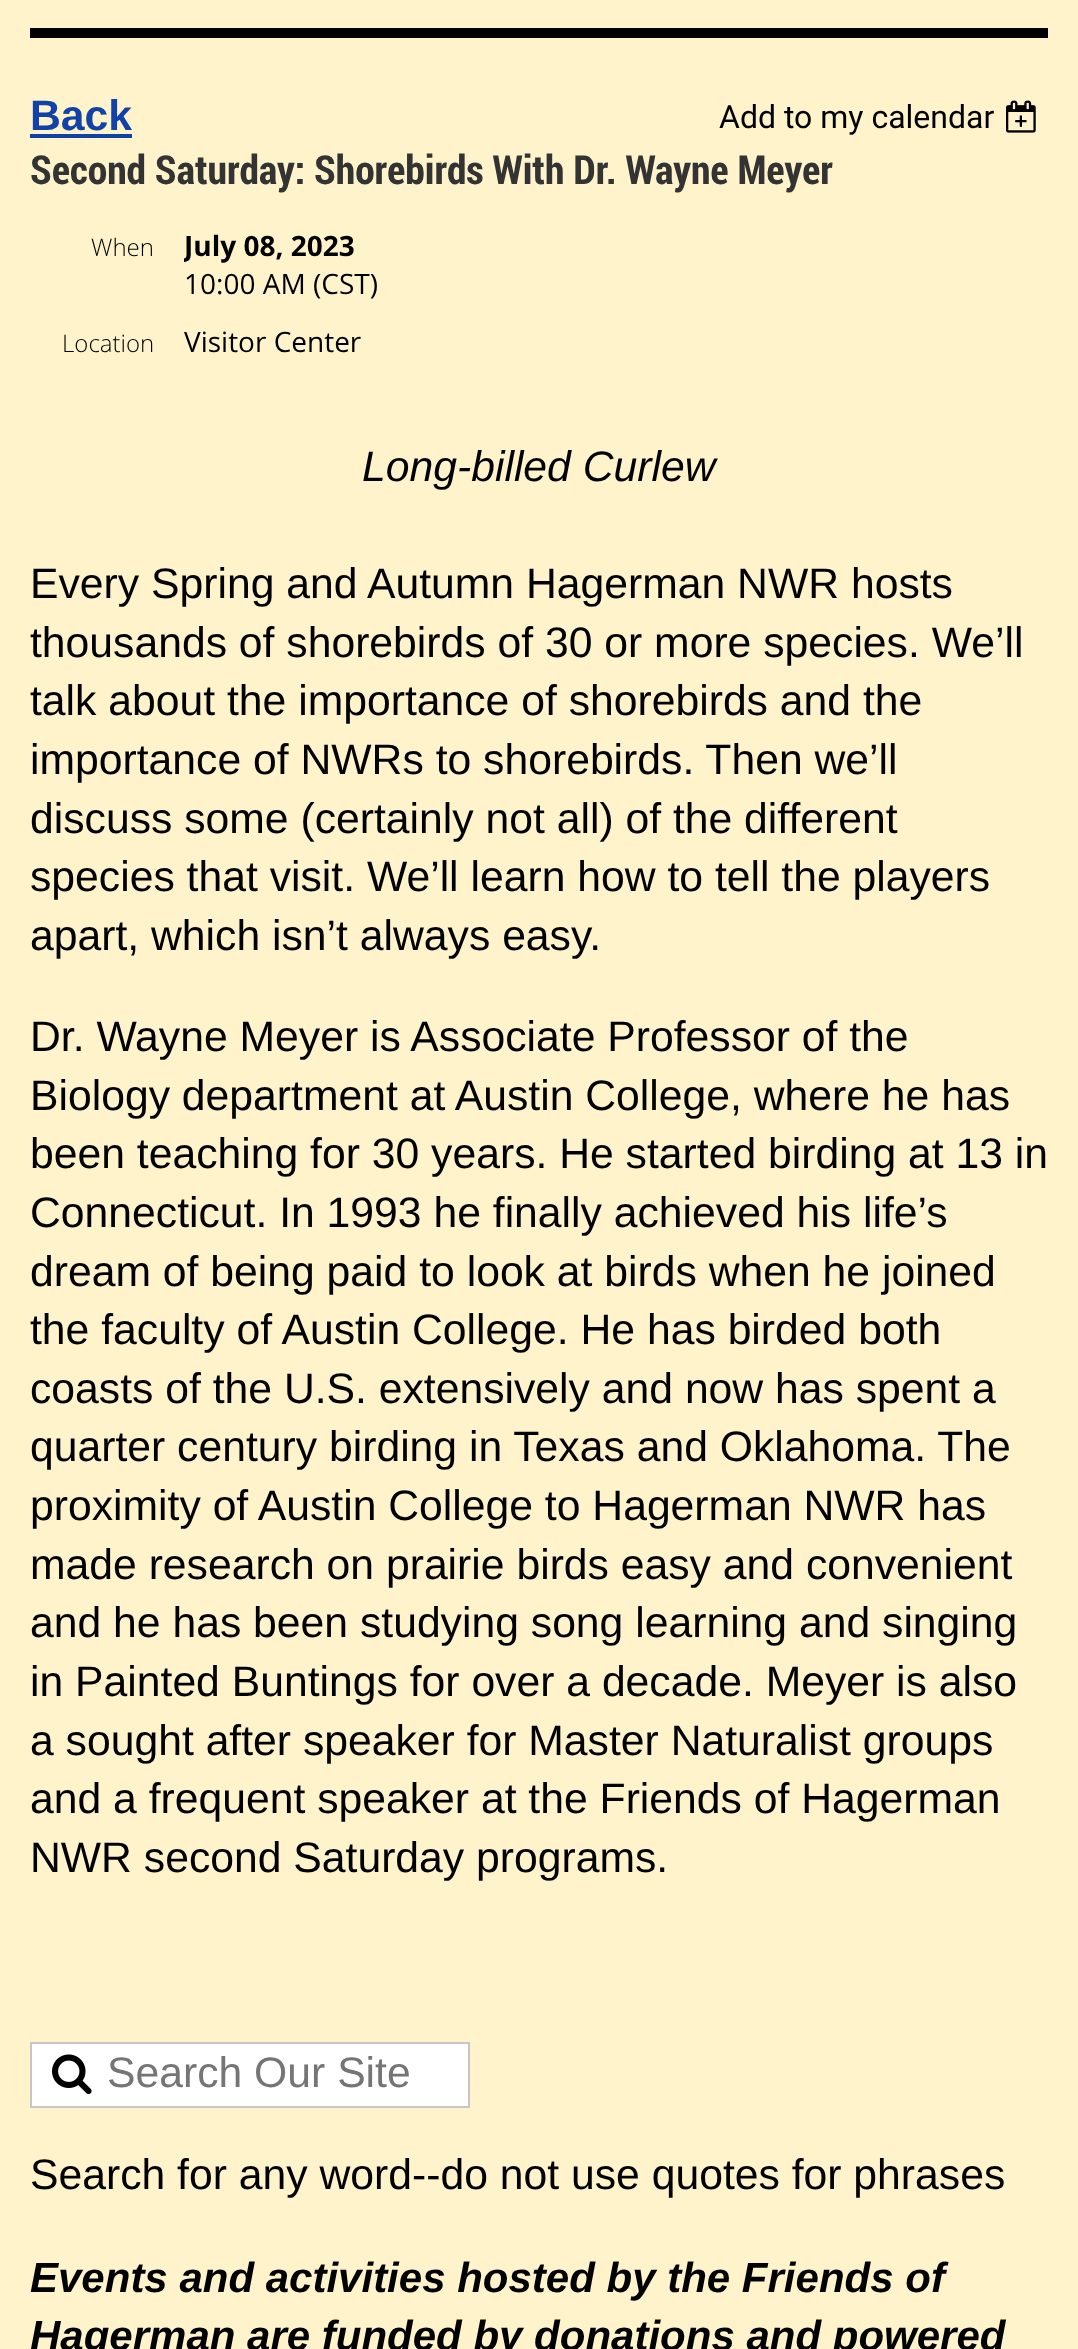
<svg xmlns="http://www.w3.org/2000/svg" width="1078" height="2349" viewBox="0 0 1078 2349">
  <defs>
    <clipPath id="clip1"><rect x="184" y="226" width="170" height="38"/></clipPath>
  </defs>
  <rect width="100%" height="100%" fill="#fff3cc"/>
  <rect x="30" y="28" width="1018" height="10" fill="#000000"/>
  <text x="30" y="130" font-family="Liberation Sans" font-size="42.7" font-weight="bold" fill="#1142a7">Back</text>
  <rect x="30" y="134" width="102" height="4" fill="#1142a7"/>
  <text x="719" y="128" font-family="Roboto" font-size="32" fill="#000000">Add to my calendar</text>
  <image x="1006" y="100" width="30" height="33" href="img1.png"/>
  <text x="30" y="184" font-family="Roboto Condensed" font-size="40" font-weight="bold" fill="#333333">Second Saturday: Shorebirds With Dr. Wayne Meyer</text>
  <text x="91" y="256" font-family="Open Sans" font-size="24" font-weight="300" fill="#000000">When</text>
  <g clip-path="url(#clip1)">
    <text x="184" y="256" font-family="Open Sans" font-size="28" font-weight="bold" fill="#000000">July 08, 2023</text>
  </g>
  <text x="184" y="294" font-family="Open Sans" font-size="28" fill="#000000">10:00 AM (CST)</text>
  <text x="62" y="352" font-family="Open Sans" font-size="24" font-weight="300" fill="#000000">Location</text>
  <text x="184" y="352" font-family="Open Sans" font-size="28" fill="#000000">Visitor Center</text>
  <text x="362" y="481" font-family="Liberation Sans" font-size="42.7" font-style="italic" fill="#000000">Long-billed Curlew</text>
  <text x="30" y="598" font-family="Liberation Sans" font-size="42.7" fill="#000000">Every Spring and Autumn Hagerman NWR hosts</text>
  <text x="30" y="657" font-family="Liberation Sans" font-size="42.7" fill="#000000">thousands of shorebirds of 30 or more species. We’ll</text>
  <text x="30" y="715" font-family="Liberation Sans" font-size="42.7" fill="#000000">talk about the importance of shorebirds and the</text>
  <text x="30" y="774" font-family="Liberation Sans" font-size="42.7" fill="#000000">importance of NWRs to shorebirds. Then we’ll</text>
  <text x="30" y="833" font-family="Liberation Sans" font-size="42.7" fill="#000000">discuss some (certainly not all) of the different</text>
  <text x="30" y="891" font-family="Liberation Sans" font-size="42.7" fill="#000000">species that visit. We’ll learn how to tell the players</text>
  <text x="30" y="950" font-family="Liberation Sans" font-size="42.7" fill="#000000">apart, which isn’t always easy.</text>
  <text x="30" y="1051" font-family="Liberation Sans" font-size="42.7" fill="#000000">Dr. Wayne Meyer is Associate Professor of the</text>
  <text x="30" y="1110" font-family="Liberation Sans" font-size="42.7" fill="#000000">Biology department at Austin College, where he has</text>
  <text x="30" y="1168" font-family="Liberation Sans" font-size="42.7" fill="#000000">been teaching for 30 years. He started birding at 13 in</text>
  <text x="30" y="1227" font-family="Liberation Sans" font-size="42.7" fill="#000000">Connecticut. In 1993 he finally achieved his life’s</text>
  <text x="30" y="1286" font-family="Liberation Sans" font-size="42.7" fill="#000000">dream of being paid to look at birds when he joined</text>
  <text x="30" y="1344" font-family="Liberation Sans" font-size="42.7" fill="#000000">the faculty of Austin College. He has birded both</text>
  <text x="30" y="1403" font-family="Liberation Sans" font-size="42.7" fill="#000000">coasts of the U.S. extensively and now has spent a</text>
  <text x="30" y="1461" font-family="Liberation Sans" font-size="42.7" fill="#000000">quarter century birding in Texas and Oklahoma. The</text>
  <text x="30" y="1520" font-family="Liberation Sans" font-size="42.7" fill="#000000">proximity of Austin College to Hagerman NWR has</text>
  <text x="30" y="1579" font-family="Liberation Sans" font-size="42.7" fill="#000000">made research on prairie birds easy and convenient</text>
  <text x="30" y="1637" font-family="Liberation Sans" font-size="42.7" fill="#000000">and he has been studying song learning and singing</text>
  <text x="30" y="1696" font-family="Liberation Sans" font-size="42.7" fill="#000000">in Painted Buntings for over a decade. Meyer is also</text>
  <text x="30" y="1755" font-family="Liberation Sans" font-size="42.7" fill="#000000">a sought after speaker for Master Naturalist groups</text>
  <text x="30" y="1813" font-family="Liberation Sans" font-size="42.7" fill="#000000">and a frequent speaker at the Friends of Hagerman</text>
  <text x="30" y="1872" font-family="Liberation Sans" font-size="42.7" fill="#000000">NWR second Saturday programs.</text>
  <rect x="31" y="2043" width="438" height="64" fill="#ffffff" stroke="#c6c6c6" stroke-width="2"/>
  <image x="52" y="2054" width="40" height="41" href="img2.png"/>
  <text x="107" y="2087" font-family="Liberation Sans" font-size="42.7" fill="#757575">Search Our Site</text>
  <text x="30" y="2189" font-family="Liberation Sans" font-size="42.7" fill="#000000">Search for any word--do not use quotes for phrases</text>
  <text x="30" y="2292" font-family="Liberation Sans" font-size="42" font-weight="bold" font-style="italic" fill="#000000">Events and activities hosted by the Friends of</text>
  <text x="30" y="2350" font-family="Liberation Sans" font-size="42" font-weight="bold" font-style="italic" fill="#000000">Hagerman are funded by donations and powered</text>
</svg>
